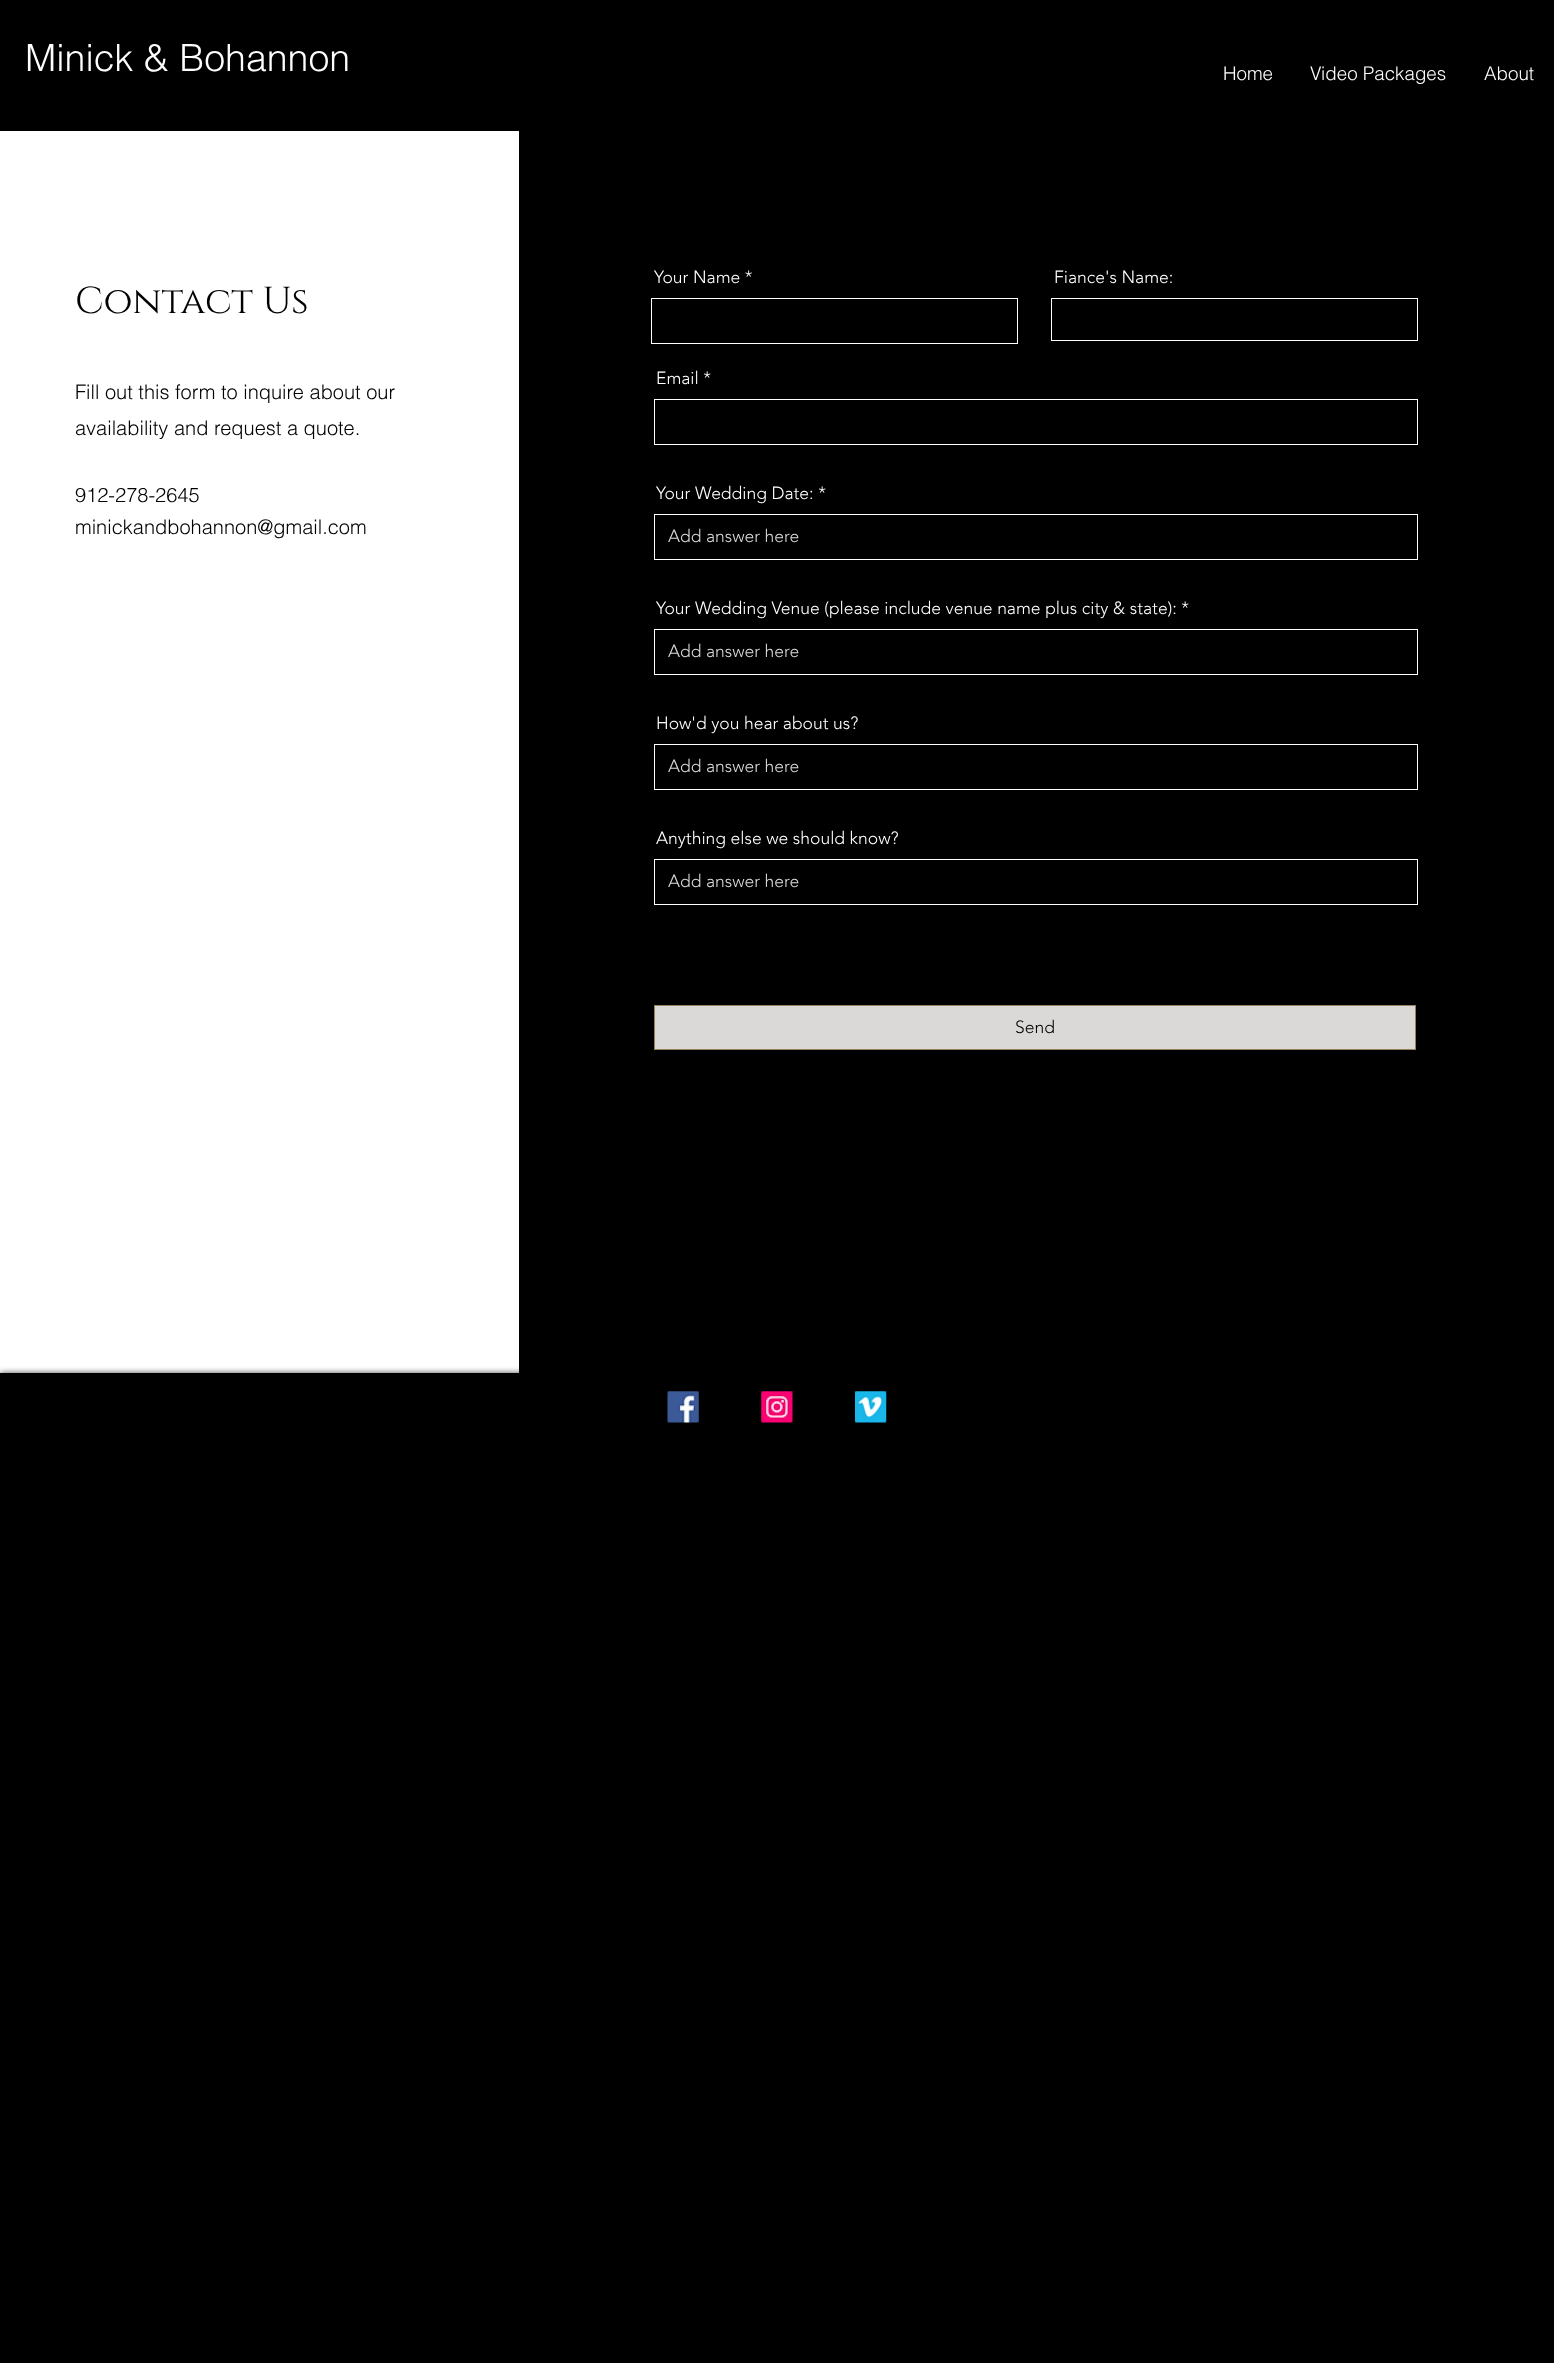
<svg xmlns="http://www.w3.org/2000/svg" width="1554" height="2363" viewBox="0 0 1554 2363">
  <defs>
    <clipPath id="clip1"><path d="M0 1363H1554V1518H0ZM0 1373H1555V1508H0Z" clip-rule="evenodd"/></clipPath>
    <filter id="blur1" x="-50%" y="-200%" width="200%" height="500%"><feGaussianBlur stdDeviation="3"/></filter>
  </defs>
  <rect width="100%" height="100%" fill="#000000"/>
  <text x="25" y="71" font-family="helvetica" font-size="37.5" font-weight="300" fill="#ffffff">Minick &amp; Bohannon</text>
  <text x="1223" y="80" font-family="helvetica" font-size="18.75" font-weight="300" fill="#ffffff">Home</text>
  <text x="1310" y="80" font-family="helvetica" font-size="18.75" font-weight="300" fill="#ffffff">Video Packages</text>
  <text x="1484" y="80" font-family="helvetica" font-size="18.75" font-weight="300" fill="#ffffff">About</text>
  <rect x="0" y="131" width="519" height="1242" fill="#ffffff"/>
  <text x="75" y="313" font-family="Cinzel" font-size="37.5" fill="#000000">Contact Us</text>
  <text x="75" y="399" font-family="helvetica" font-size="20" font-weight="300" fill="#000000">Fill out this form to inquire about our</text>
  <text x="75" y="435" font-family="helvetica" font-size="20" font-weight="300" fill="#000000">availability and request a quote.</text>
  <text x="75" y="502" font-family="helvetica" font-size="20" font-weight="300" fill="#000000">912-278-2645</text>
  <text x="75" y="534" font-family="helvetica" font-size="20" font-weight="300" fill="#000000">minickandbohannon@gmail.com</text>
  <text x="654" y="283" font-family="'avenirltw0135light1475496'" font-size="17.5" font-weight="300" fill="#ffffff">Your Name *</text>
  <rect x="651.5" y="298.5" width="366" height="45" fill="none" stroke="#ffffff"/>
  <text x="1054" y="283" font-family="'avenirltw0135light1475496'" font-size="17.5" font-weight="300" fill="#ffffff">Fiance's Name:</text>
  <rect x="1051.5" y="298.5" width="366" height="42" fill="none" stroke="#ffffff"/>
  <text x="656" y="384" font-family="'avenirltw0135light1475496'" font-size="17.5" font-weight="300" fill="#ffffff">Email *</text>
  <rect x="654.5" y="399.5" width="763" height="45" fill="none" stroke="#ffffff"/>
  <text x="656" y="499" font-family="'avenirltw0135light1475496'" font-size="17.5" font-weight="300" fill="#ffffff">Your Wedding Date: *</text>
  <rect x="654.5" y="514.5" width="763" height="45" fill="none" stroke="#ffffff"/>
  <text x="668" y="542" font-family="'avenirltw0135light1475496'" font-size="17.5" font-weight="300" fill="#dbd9d7">Add answer here</text>
  <text x="656" y="614" font-family="'avenirltw0135light1475496'" font-size="17.5" font-weight="300" fill="#ffffff">Your Wedding Venue (please include venue name plus city &amp; state): *</text>
  <rect x="654.5" y="629.5" width="763" height="45" fill="none" stroke="#ffffff"/>
  <text x="668" y="657" font-family="'avenirltw0135light1475496'" font-size="17.5" font-weight="300" fill="#dbd9d7">Add answer here</text>
  <text x="656" y="729" font-family="'avenirltw0135light1475496'" font-size="17.5" font-weight="300" fill="#ffffff">How'd you hear about us?</text>
  <rect x="654.5" y="744.5" width="763" height="45" fill="none" stroke="#ffffff"/>
  <text x="668" y="772" font-family="'avenirltw0135light1475496'" font-size="17.5" font-weight="300" fill="#dbd9d7">Add answer here</text>
  <text x="656" y="844" font-family="'avenirltw0135light1475496'" font-size="17.5" font-weight="300" fill="#ffffff">Anything else we should know?</text>
  <rect x="654.5" y="859.5" width="763" height="45" fill="none" stroke="#ffffff"/>
  <text x="668" y="887" font-family="'avenirltw0135light1475496'" font-size="17.5" font-weight="300" fill="#dbd9d7">Add answer here</text>
  <rect x="654.5" y="1005.5" width="761" height="44" fill="#dbd9d7" stroke="#95815b"/>
  <text x="1015" y="1033" font-family="'avenirltw0135light1475496'" font-size="17.5" font-weight="300" fill="#000000">Send</text>
  <g clip-path="url(#clip1)">
    <rect x="0" y="1373" width="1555" height="135" fill="#000000" fill-opacity="0.7" filter="url(#blur1)"/>
  </g>
  <image x="667" y="1391" width="32" height="32" href="img1.png"/>
  <image x="761" y="1391" width="32" height="32" href="img2.png"/>
  <image x="855" y="1391" width="32" height="32" href="img3.png"/>
</svg>
